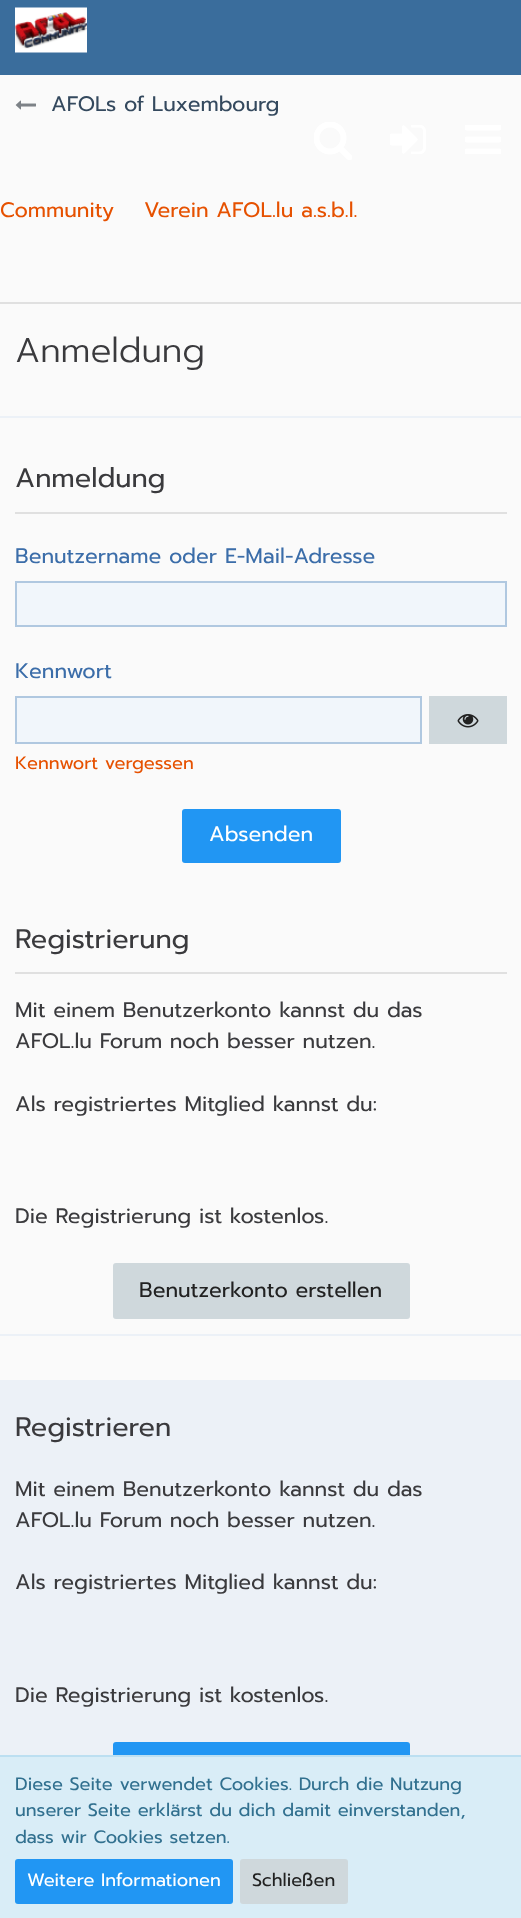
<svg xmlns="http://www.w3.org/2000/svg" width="521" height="1918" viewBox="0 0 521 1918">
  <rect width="100%" height="100%" fill="#fafafa"/>
  <rect x="0" y="0" width="521" height="75" fill="#3a6d9c"/>
  <image x="15" y="7" width="72" height="46" href="img1.png"/>
  <image x="314" y="122" width="38" height="38" href="img2.png"/>
  <image x="390" y="125" width="36" height="29" href="img3.png"/>
  <image x="465" y="125" width="36" height="29" href="img4.png"/>
  <image x="15" y="100" width="21" height="10" href="img5.png"/>
  <text x="51" y="111" font-family="Prompt" font-size="21" fill="#34495e">AFOLs of Luxembourg</text>
  <rect x="0" y="302" width="521" height="2" fill="#e0e0e0"/>
  <text x="0" y="217" font-family="Prompt" font-size="21" fill="#e65100">Community</text>
  <text x="144" y="217" font-family="Prompt" font-size="21" fill="#e65100">Verein AFOL.lu a.s.b.l.</text>
  <text x="15" y="362" font-family="Prompt" font-size="34.5" font-weight="300" fill="#3a3a3d">Anmeldung</text>
  <rect x="0" y="416" width="521" height="2" fill="#ecf1f7"/>
  <rect x="0" y="1334" width="521" height="2" fill="#ecf1f7"/>
  <rect x="15" y="512" width="492" height="2" fill="#e0e0e0"/>
  <text x="15" y="487" font-family="Prompt" font-size="27" fill="#3a3a3d">Anmeldung</text>
  <text x="15" y="563" font-family="Prompt" font-size="21" fill="#3b6da9">Benutzername oder E-Mail-Adresse</text>
  <rect x="16" y="582" width="490" height="44" fill="#f1f6fb" stroke="#b0c8e0" stroke-width="2"/>
  <text x="15" y="678" font-family="Prompt" font-size="21" fill="#3b6da9">Kennwort</text>
  <rect x="16" y="697" width="405" height="46" fill="#f1f6fb" stroke="#b0c8e0" stroke-width="2"/>
  <rect x="429" y="696" width="78" height="48" fill="#cfd8dc"/>
  <image x="457" y="714" width="22" height="14" href="img6.png"/>
  <text x="15" y="769" font-family="Prompt" font-size="18" fill="#e65100">Kennwort vergessen</text>
  <rect x="182" y="809" width="159" height="54" rx="3" fill="#2196f3"/>
  <text x="209" y="841" font-family="Prompt" font-size="21" fill="#ffffff">Absenden</text>
  <rect x="15" y="972" width="492" height="2" fill="#e0e0e0"/>
  <text x="15" y="948" font-family="Prompt" font-size="27" fill="#3a3a3d">Registrierung</text>
  <text x="15" y="1017" font-family="Prompt" font-size="21" fill="#3a3a3d">Mit einem Benutzerkonto kannst du das</text>
  <text x="15" y="1048" font-family="Prompt" font-size="21" fill="#3a3a3d">AFOL.lu Forum noch besser nutzen.</text>
  <text x="15" y="1111" font-family="Prompt" font-size="21" fill="#3a3a3d">Als registriertes Mitglied kannst du:</text>
  <text x="15" y="1223" font-family="Prompt" font-size="21" fill="#3a3a3d">Die Registrierung ist kostenlos.</text>
  <rect x="113" y="1263" width="297" height="56" rx="3" fill="#cfd8dc"/>
  <text x="139" y="1297" font-family="Prompt" font-size="21" fill="#212121">Benutzerkonto erstellen</text>
  <rect x="0" y="1380" width="521" height="375" fill="#ecf1f7"/>
  <text x="15" y="1436" font-family="Prompt" font-size="27" fill="#3a3a3d">Registrieren</text>
  <text x="15" y="1496" font-family="Prompt" font-size="21" fill="#3a3a3d">Mit einem Benutzerkonto kannst du das</text>
  <text x="15" y="1527" font-family="Prompt" font-size="21" fill="#3a3a3d">AFOL.lu Forum noch besser nutzen.</text>
  <text x="15" y="1589" font-family="Prompt" font-size="21" fill="#3a3a3d">Als registriertes Mitglied kannst du:</text>
  <text x="15" y="1702" font-family="Prompt" font-size="21" fill="#3a3a3d">Die Registrierung ist kostenlos.</text>
  <rect x="113" y="1742" width="297" height="55" rx="3" fill="#2196f3"/>
  <rect x="0" y="1757" width="521" height="161" fill="#d9edf7"/>
  <rect x="0" y="1755" width="521" height="2" fill="#bcdff1"/>
  <text x="15" y="1790" font-family="Prompt" font-size="18" fill="#31708f">Diese Seite verwendet Cookies. Durch die Nutzung</text>
  <text x="15" y="1816" font-family="Prompt" font-size="18" fill="#31708f">unserer Seite erklärst du dich damit einverstanden,</text>
  <text x="15" y="1843" font-family="Prompt" font-size="18" fill="#31708f">dass wir Cookies setzen.</text>
  <rect x="15" y="1859" width="218" height="45" rx="3" fill="#2196f3"/>
  <text x="27" y="1886" font-family="Prompt" font-size="18" fill="#ffffff">Weitere Informationen</text>
  <rect x="240" y="1859" width="108" height="45" rx="3" fill="#cfd8dc"/>
  <text x="252" y="1886" font-family="Prompt" font-size="18" fill="#212121">Schließen</text>
</svg>
